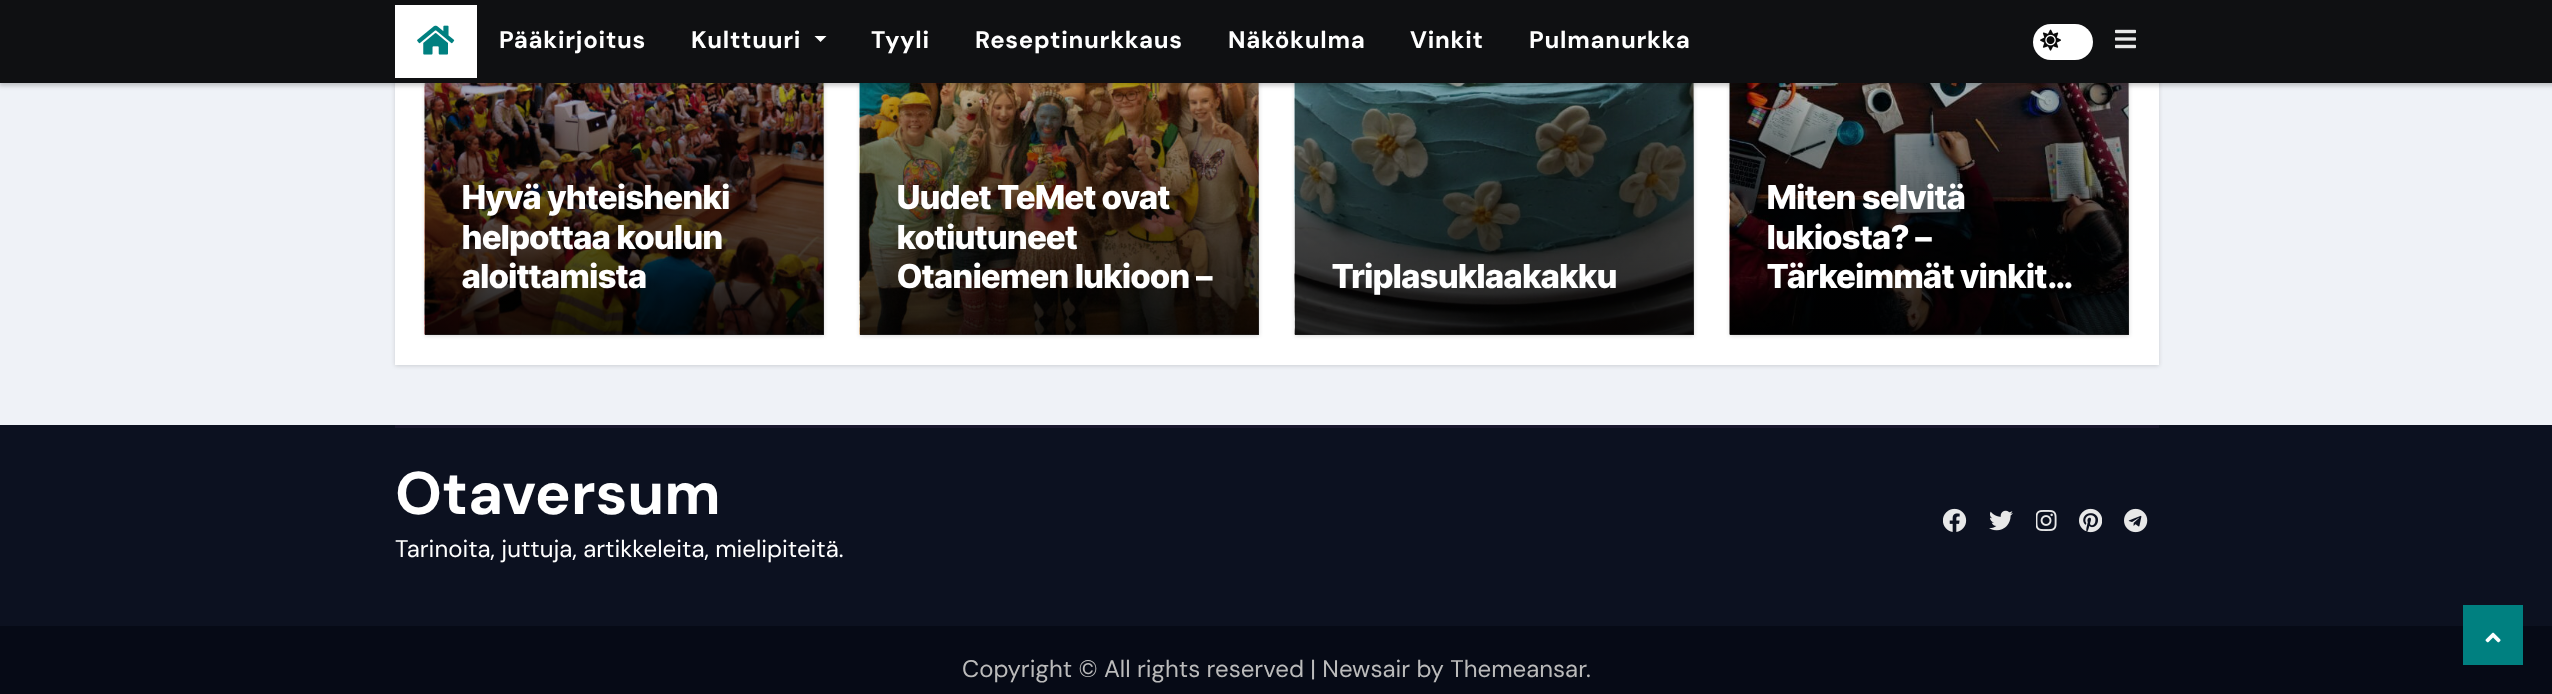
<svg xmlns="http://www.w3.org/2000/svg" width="2552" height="694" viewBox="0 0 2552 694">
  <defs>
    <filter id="blur1" x="-50%" y="-200%" width="200%" height="500%"><feGaussianBlur stdDeviation="2"/></filter>
    <linearGradient id="g1" gradientUnits="userSpaceOnUse" x1="624" y1="-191" x2="624" y2="335"><stop offset="0" stop-color="#000000" stop-opacity="0"/><stop offset="0.45" stop-color="#000000" stop-opacity="0"/><stop offset="0.6" stop-color="#000000" stop-opacity="0.4"/><stop offset="1" stop-color="#000000" stop-opacity="0.85"/></linearGradient>
    <linearGradient id="g2" gradientUnits="userSpaceOnUse" x1="1059" y1="-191" x2="1059" y2="335"><stop offset="0" stop-color="#000000" stop-opacity="0"/><stop offset="0.45" stop-color="#000000" stop-opacity="0"/><stop offset="0.6" stop-color="#000000" stop-opacity="0.4"/><stop offset="1" stop-color="#000000" stop-opacity="0.85"/></linearGradient>
    <linearGradient id="g3" gradientUnits="userSpaceOnUse" x1="1494" y1="-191" x2="1494" y2="335"><stop offset="0" stop-color="#000000" stop-opacity="0"/><stop offset="0.45" stop-color="#000000" stop-opacity="0"/><stop offset="0.6" stop-color="#000000" stop-opacity="0.4"/><stop offset="1" stop-color="#000000" stop-opacity="0.85"/></linearGradient>
    <linearGradient id="g4" gradientUnits="userSpaceOnUse" x1="1929" y1="-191" x2="1929" y2="335"><stop offset="0" stop-color="#000000" stop-opacity="0"/><stop offset="0.45" stop-color="#000000" stop-opacity="0"/><stop offset="0.6" stop-color="#000000" stop-opacity="0.4"/><stop offset="1" stop-color="#000000" stop-opacity="0.85"/></linearGradient>
  </defs>
  <rect width="100%" height="100%" fill="#eff2f7"/>
  <rect x="395" y="-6" width="1764" height="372" fill="#000000" fill-opacity="0.15" filter="url(#blur1)"/>
  <rect x="395" y="83" width="1764" height="282" fill="#ffffff"/>
  <rect x="425" y="-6" width="399" height="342" fill="#000000" fill-opacity="0.15" filter="url(#blur1)"/>
  <rect x="425" y="83" width="399" height="252" fill="#ffffff"/>
  <image x="424" y="83" width="400" height="252" href="img4.png"/>
  <rect x="425" y="83" width="399" height="252" fill="url(#g1)"/>
  <rect x="860" y="-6" width="399" height="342" fill="#000000" fill-opacity="0.15" filter="url(#blur1)"/>
  <rect x="860" y="83" width="399" height="252" fill="#ffffff"/>
  <image x="859" y="83" width="400" height="252" href="img5.png"/>
  <rect x="860" y="83" width="399" height="252" fill="url(#g2)"/>
  <rect x="1295" y="-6" width="399" height="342" fill="#000000" fill-opacity="0.15" filter="url(#blur1)"/>
  <rect x="1295" y="83" width="399" height="252" fill="#ffffff"/>
  <image x="1294" y="83" width="400" height="252" href="img6.png"/>
  <rect x="1295" y="83" width="399" height="252" fill="url(#g3)"/>
  <rect x="1730" y="-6" width="399" height="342" fill="#000000" fill-opacity="0.15" filter="url(#blur1)"/>
  <rect x="1730" y="83" width="399" height="252" fill="#ffffff"/>
  <image x="1729" y="83" width="400" height="252" href="img7.png"/>
  <rect x="1730" y="83" width="399" height="252" fill="url(#g4)"/>
  <rect x="-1" y="0" width="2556" height="86" fill="#000000" fill-opacity="0.2" filter="url(#blur1)"/>
  <rect x="0" y="0" width="2552" height="83" fill="#0f1012"/>
  <rect x="395" y="5" width="82" height="73" fill="#ffffff"/>
  <image x="417" y="25" width="38" height="30" href="img1.png"/>
  <text x="499" y="48" font-family="DM Sans" font-size="24" font-weight="bold" letter-spacing="0.75" fill="#ffffff">Pääkirjoitus</text>
  <text x="691" y="48" font-family="DM Sans" font-size="24" font-weight="bold" letter-spacing="0.75" fill="#ffffff">Kulttuuri</text>
  <path d="M814.5 36H826.5L820.5 42Z" fill="#ffffff"/>
  <text x="871" y="48" font-family="DM Sans" font-size="24" font-weight="bold" letter-spacing="0.75" fill="#ffffff">Tyyli</text>
  <text x="975" y="48" font-family="DM Sans" font-size="24" font-weight="bold" letter-spacing="0.75" fill="#ffffff">Reseptinurkkaus</text>
  <text x="1228" y="48" font-family="DM Sans" font-size="24" font-weight="bold" letter-spacing="0.75" fill="#ffffff">Näkökulma</text>
  <text x="1410" y="48" font-family="DM Sans" font-size="24" font-weight="bold" letter-spacing="0.75" fill="#ffffff">Vinkit</text>
  <text x="1529" y="48" font-family="DM Sans" font-size="24" font-weight="bold" letter-spacing="0.75" fill="#ffffff">Pulmanurkka</text>
  <rect x="2033" y="24" width="60" height="36" rx="18" fill="#ffffff"/>
  <image x="2040" y="29" width="21" height="22" href="img2.png"/>
  <image x="2115" y="29" width="21" height="20" href="img3.png"/>
  <text x="462" y="209" font-family="Inter Tight" font-size="33" font-weight="800" fill="#ffffff">Hyvä yhteishenki</text>
  <text x="462" y="249" font-family="Inter Tight" font-size="33" font-weight="800" fill="#ffffff">helpottaa koulun</text>
  <text x="462" y="288" font-family="Inter Tight" font-size="33" font-weight="800" fill="#ffffff">aloittamista</text>
  <text x="897" y="209" font-family="Inter Tight" font-size="33" font-weight="800" fill="#ffffff">Uudet TeMet ovat</text>
  <text x="897" y="249" font-family="Inter Tight" font-size="33" font-weight="800" fill="#ffffff">kotiutuneet</text>
  <text x="897" y="288" font-family="Inter Tight" font-size="33" font-weight="800" fill="#ffffff">Otaniemen lukioon –</text>
  <text x="1332" y="288" font-family="Inter Tight" font-size="33" font-weight="800" fill="#ffffff">Triplasuklaakakku</text>
  <text x="1767" y="209" font-family="Inter Tight" font-size="33" font-weight="800" fill="#ffffff">Miten selvitä</text>
  <text x="1767" y="249" font-family="Inter Tight" font-size="33" font-weight="800" fill="#ffffff">lukiosta? –</text>
  <text x="1767" y="288" font-family="Inter Tight" font-size="33" font-weight="800" fill="#ffffff">Tärkeimmät vinkit…</text>
  <rect x="0" y="425" width="2552" height="201" fill="#0c1120"/>
  <rect x="395" y="425" width="1764" height="3" fill="#1a182e"/>
  <text x="395" y="514" font-family="DM Sans" font-size="60" font-weight="bold" fill="#ffffff">Otaversum</text>
  <text x="395" y="557" font-family="DM Sans" font-size="24" fill="#ffffff">Tarinoita, juttuja, artikkeleita, mielipiteitä.</text>
  <image x="1943" y="508" width="24" height="24" href="img8.png"/>
  <image x="1989" y="510" width="24" height="21" href="img9.png"/>
  <image x="2036" y="510" width="21" height="21" href="img10.png"/>
  <image x="2079" y="508" width="23" height="25" href="img11.png"/>
  <image x="2124" y="508" width="24" height="25" href="img12.png"/>
  <rect x="0" y="626" width="2552" height="68" fill="#060a16"/>
  <text x="962" y="677" font-family="DM Sans" font-size="24" fill="#bbbbbb">Copyright © All rights reserved | Newsair by Themeansar</text>
  <text x="1586" y="677" font-family="DM Sans" font-size="24" fill="#bbbbbb">.</text>
  <rect x="2463" y="605" width="60" height="60" fill="#008080"/>
  <image x="2485" y="632" width="16" height="11" href="img13.png"/>
</svg>
